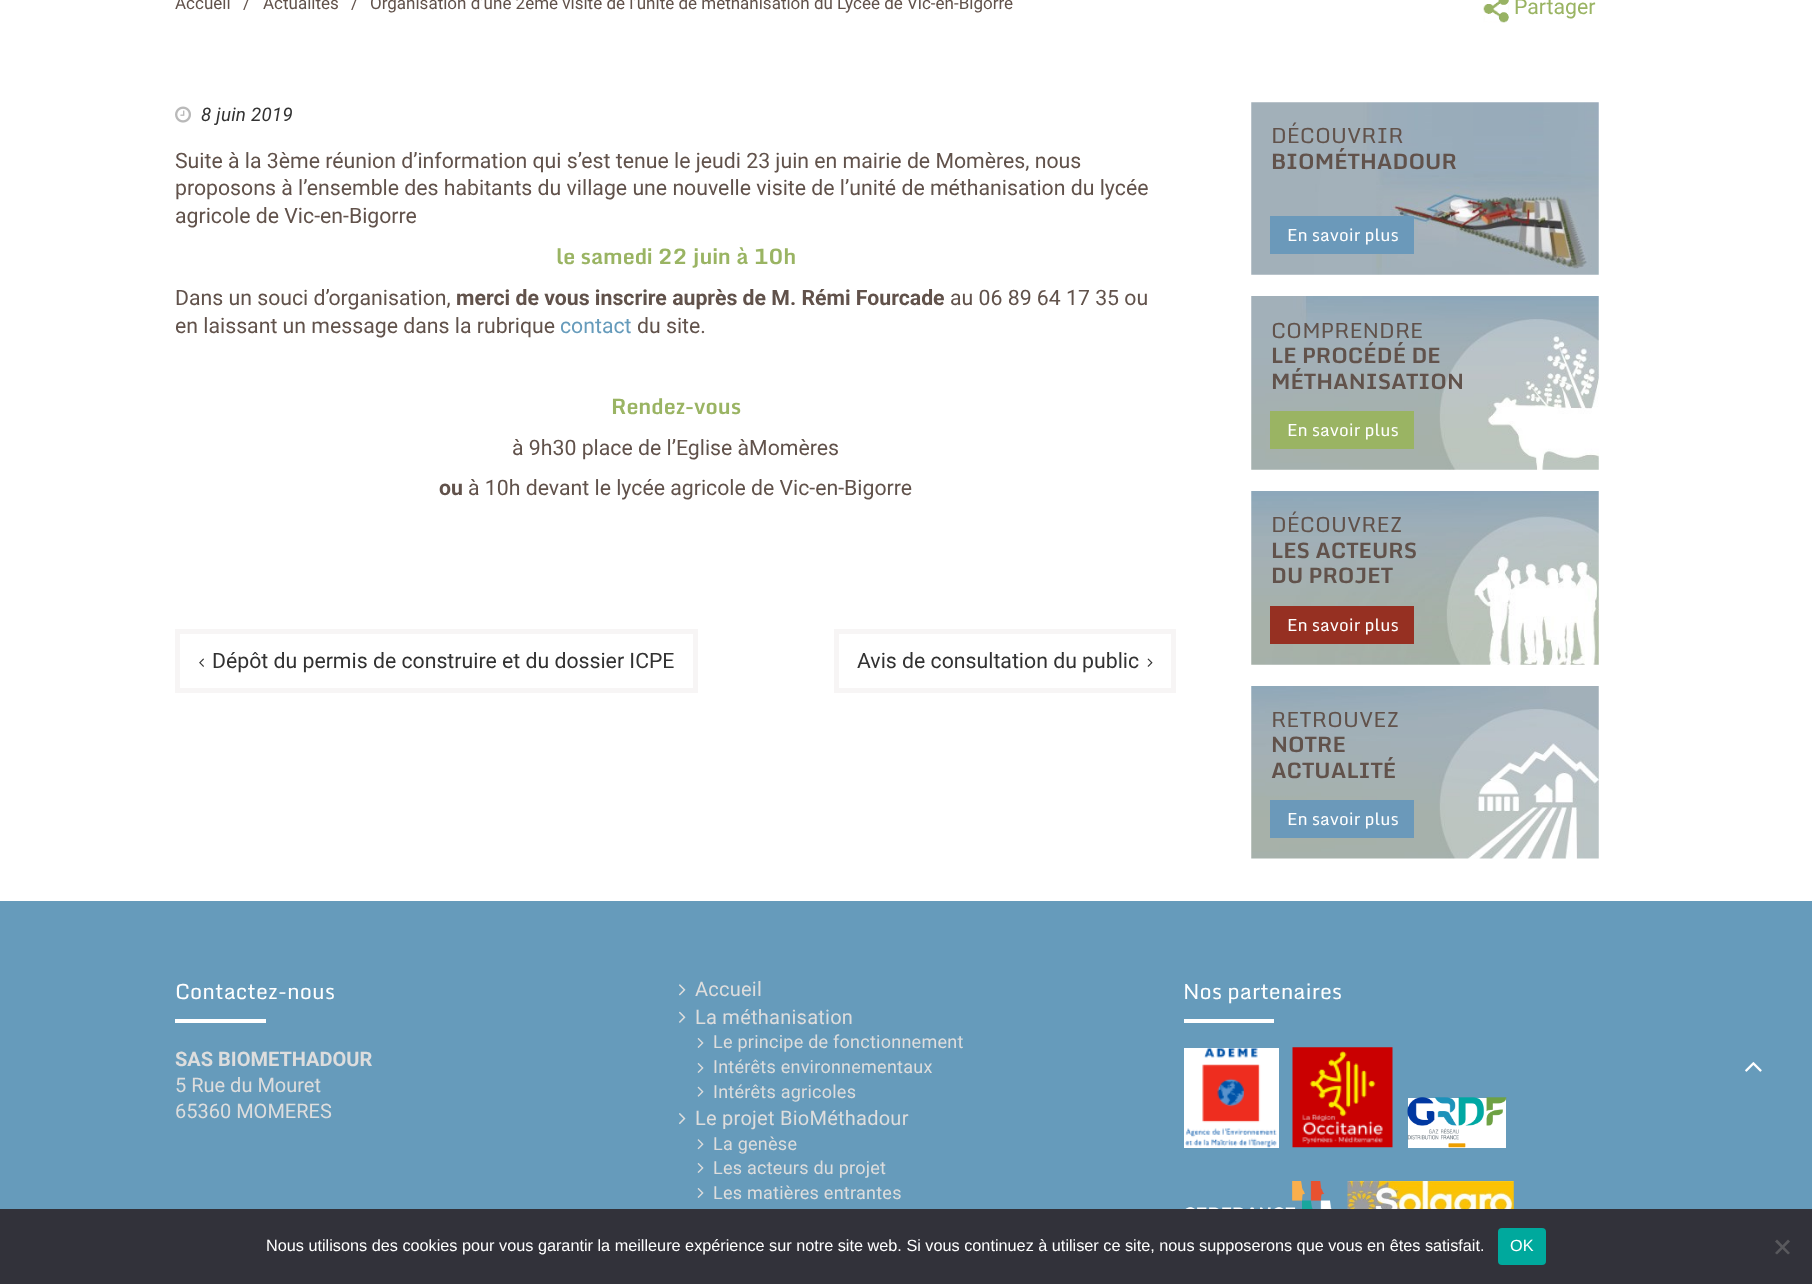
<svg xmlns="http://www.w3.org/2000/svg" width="1812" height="1284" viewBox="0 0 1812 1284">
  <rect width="100%" height="100%" fill="#ffffff"/>
  <text x="175" y="9" font-family="Roboto" font-size="17" fill="#61524b">Accueil</text>
  <text x="243" y="9" font-family="Roboto" font-size="17" fill="#61524b">/</text>
  <text x="263" y="9" font-family="Roboto" font-size="17" fill="#61524b">Actualités</text>
  <text x="351" y="9" font-family="Roboto" font-size="17" fill="#61524b">/</text>
  <text x="370" y="9" font-family="Roboto" font-size="17" fill="#61524b">Organisation d’une 2ème visite de l’unité de méthanisation du Lycée de Vic-en-Bigorre</text>
  <image x="1483" y="0" width="26" height="23" href="img1.png"/>
  <text x="1514" y="14" font-family="Roboto" font-size="21.25" fill="#9ab463">Partager</text>
  <image x="175" y="106" width="16" height="17" href="img2.png"/>
  <text x="201" y="121" font-family="Roboto" font-size="18.75" font-style="italic" letter-spacing="0.25" fill="#323232">8 juin 2019</text>
  <text x="175" y="168" font-family="Roboto" font-size="21.25" fill="#61524b">Suite à la 3ème réunion d’information qui s’est tenue le jeudi 23 juin en mairie de Momères, nous</text>
  <text x="175" y="195" font-family="Roboto" font-size="21.25" fill="#61524b">proposons à l’ensemble des habitants du village une nouvelle visite de l’unité de méthanisation du lycée</text>
  <text x="175" y="223" font-family="Roboto" font-size="21.25" fill="#61524b">agricole de Vic-en-Bigorre</text>
  <text x="556" y="264" font-family="Monda" font-size="21.25" font-weight="bold" fill="#9ab463">le samedi 22 juin à 10h</text>
  <text x="175" y="305" font-family="Roboto" font-size="21.25" fill="#61524b">Dans un souci d’organisation,</text>
  <text x="456" y="305" font-family="Roboto" font-size="21.25" font-weight="bold" fill="#61524b">merci de vous inscrire auprès de M. Rémi Fourcade</text>
  <text x="950" y="305" font-family="Roboto" font-size="21.25" fill="#61524b">au 06 89 64 17 35 ou</text>
  <text x="175" y="333" font-family="Roboto" font-size="21.25" fill="#61524b">en laissant un message dans la rubrique</text>
  <text x="560" y="333" font-family="Roboto" font-size="21.25" fill="#669bbb">contact</text>
  <text x="637" y="333" font-family="Roboto" font-size="21.25" fill="#61524b">du site.</text>
  <text x="611" y="414" font-family="Monda" font-size="21.25" font-weight="bold" fill="#9ab463">Rendez-vous</text>
  <text x="512" y="455" font-family="Roboto" font-size="21.25" fill="#61524b">à 9h30 place de l’Eglise àMomères</text>
  <text x="439" y="495" font-family="Roboto" font-size="21.25" font-weight="bold" fill="#61524b">ou</text>
  <text x="468" y="495" font-family="Roboto" font-size="21.25" fill="#61524b">à 10h devant le lycée agricole de Vic-en-Bigorre</text>
  <rect x="177.5" y="631.5" width="518" height="59" fill="none" stroke="#f7f5f5" stroke-width="5"/>
  <image x="199" y="658" width="5" height="9" href="img3.png"/>
  <text x="212" y="668" font-family="Roboto" font-size="21.25" fill="#323232">Dépôt du permis de construire et du dossier ICPE</text>
  <rect x="836.5" y="631.5" width="337" height="59" fill="none" stroke="#f7f5f5" stroke-width="5"/>
  <text x="857" y="668" font-family="Roboto" font-size="21.25" fill="#323232">Avis de consultation du public</text>
  <image x="1147" y="658" width="6" height="9" href="img4.png"/>
  <image x="1251" y="102" width="348" height="173" href="img5.png"/>
  <text x="1271" y="143" font-family="Monda" font-size="21.25" fill="#61524b">DÉCOUVRIR</text>
  <text x="1271" y="169" font-family="Monda" font-size="21.25" font-weight="bold" fill="#61524b">BIOMÉTHADOUR</text>
  <rect x="1270" y="216" width="144" height="38" fill="#6b99ba"/>
  <text x="1287" y="241" font-family="Monda" font-size="17" fill="#ffffff">En savoir plus</text>
  <image x="1251" y="296" width="348" height="174" href="img6.png"/>
  <text x="1271" y="338" font-family="Monda" font-size="21.25" fill="#61524b">COMPRENDRE</text>
  <text x="1271" y="363" font-family="Monda" font-size="21.25" font-weight="bold" fill="#61524b">LE PROCÉDÉ DE</text>
  <text x="1271" y="389" font-family="Monda" font-size="21.25" font-weight="bold" fill="#61524b">MÉTHANISATION</text>
  <rect x="1270" y="411" width="144" height="38" fill="#9ab463"/>
  <text x="1287" y="436" font-family="Monda" font-size="17" fill="#ffffff">En savoir plus</text>
  <image x="1251" y="491" width="348" height="174" href="img7.png"/>
  <text x="1271" y="532" font-family="Monda" font-size="21.25" fill="#61524b">DÉCOUVREZ</text>
  <text x="1271" y="558" font-family="Monda" font-size="21.25" font-weight="bold" fill="#61524b">LES ACTEURS</text>
  <text x="1271" y="583" font-family="Monda" font-size="21.25" font-weight="bold" fill="#61524b">DU PROJET</text>
  <rect x="1270" y="606" width="144" height="38" fill="#963022"/>
  <text x="1287" y="631" font-family="Monda" font-size="17" fill="#ffffff">En savoir plus</text>
  <image x="1251" y="686" width="348" height="173" href="img8.png"/>
  <text x="1271" y="727" font-family="Monda" font-size="21.25" fill="#61524b">RETROUVEZ</text>
  <text x="1271" y="752" font-family="Monda" font-size="21.25" font-weight="bold" fill="#61524b">NOTRE</text>
  <text x="1271" y="778" font-family="Monda" font-size="21.25" font-weight="bold" fill="#61524b">ACTUALITÉ</text>
  <rect x="1270" y="800" width="144" height="38" fill="#6b99ba"/>
  <text x="1287" y="825" font-family="Monda" font-size="17" fill="#ffffff">En savoir plus</text>
  <rect x="0" y="901" width="1812" height="308" fill="#669bbb"/>
  <text x="175" y="999" font-family="Monda" font-size="21.25" fill="#ffffff">Contactez-nous</text>
  <rect x="175" y="1019" width="91" height="4" fill="#ffffff"/>
  <text x="175" y="1066" font-family="Roboto" font-size="20" font-weight="bold" fill="#dddddd">SAS BIOMETHADOUR</text>
  <text x="175" y="1092" font-family="Roboto" font-size="20" fill="#dddddd">5 Rue du Mouret</text>
  <text x="175" y="1118" font-family="Roboto" font-size="20" fill="#dddddd">65360 MOMERES</text>
  <image x="679" y="984" width="7" height="12" href="img9.png"/>
  <text x="695" y="996" font-family="Roboto" font-size="20" letter-spacing="0.25" fill="#dddddd">Accueil</text>
  <image x="679" y="1011" width="7" height="12" href="img10.png"/>
  <text x="695" y="1024" font-family="Roboto" font-size="20" letter-spacing="0.25" fill="#dddddd">La méthanisation</text>
  <image x="697" y="1038" width="7" height="10" href="img11.png"/>
  <text x="713" y="1048" font-family="Roboto" font-size="18" letter-spacing="0.25" fill="#dddddd">Le principe de fonctionnement</text>
  <image x="697" y="1063" width="7" height="10" href="img11.png"/>
  <text x="713" y="1073" font-family="Roboto" font-size="18" letter-spacing="0.25" fill="#dddddd">Intérêts environnementaux</text>
  <image x="697" y="1086" width="7" height="11" href="img12.png"/>
  <text x="713" y="1098" font-family="Roboto" font-size="18" letter-spacing="0.25" fill="#dddddd">Intérêts agricoles</text>
  <image x="679" y="1113" width="7" height="12" href="img13.png"/>
  <text x="695" y="1125" font-family="Roboto" font-size="20" letter-spacing="0.25" fill="#dddddd">Le projet BioMéthadour</text>
  <image x="697" y="1139" width="7" height="11" href="img14.png"/>
  <text x="713" y="1150" font-family="Roboto" font-size="18" letter-spacing="0.25" fill="#dddddd">La genèse</text>
  <image x="697" y="1163" width="7" height="10" href="img11.png"/>
  <text x="713" y="1174" font-family="Roboto" font-size="18" letter-spacing="0.25" fill="#dddddd">Les acteurs du projet</text>
  <image x="697" y="1188" width="7" height="10" href="img11.png"/>
  <text x="713" y="1199" font-family="Roboto" font-size="18" letter-spacing="0.25" fill="#dddddd">Les matières entrantes</text>
  <text x="1183" y="999" font-family="Monda" font-size="21.25" fill="#ffffff">Nos partenaires</text>
  <rect x="1184" y="1019" width="90" height="4" fill="#ffffff"/>
  <rect x="1184" y="1048" width="95" height="100" fill="#ffffff"/>
  <image x="1292" y="1047" width="101" height="101" href="img15.png"/>
  <image x="1185" y="1048" width="92" height="100" href="img16.png"/>
  <rect x="1408" y="1098" width="98" height="50" fill="#ffffff"/>
  <image x="1407" y="1097" width="100" height="51" href="img17.png"/>
  <image x="1185" y="1181" width="147" height="28" href="img18.png"/>
  <image x="1347" y="1181" width="167" height="28" href="img19.png"/>
  <image x="1745" y="1062" width="17" height="10" href="img20.png"/>
  <rect x="0" y="1209" width="1812" height="75" fill="#32323a"/>
  <text x="266" y="1251" font-family="Liberation Sans" font-size="16.25" fill="#ffffff">Nous utilisons des cookies pour vous garantir la meilleure expérience sur notre site web. Si vous continuez à utiliser ce site, nous supposerons que vous en êtes satisfait.</text>
  <rect x="1498" y="1228" width="48" height="37" rx="4" fill="#00a99d"/>
  <text x="1510" y="1251" font-family="Liberation Sans" font-size="16.25" fill="#ffffff">OK</text>
  <path d="M1788 1239.5L1790 1241.5L1777 1254.5L1775 1253Z" fill="#59595d"/>
  <path d="M1775 1241.5L1777 1239.5L1790 1253L1788 1254.5Z" fill="#59595d"/>
</svg>
